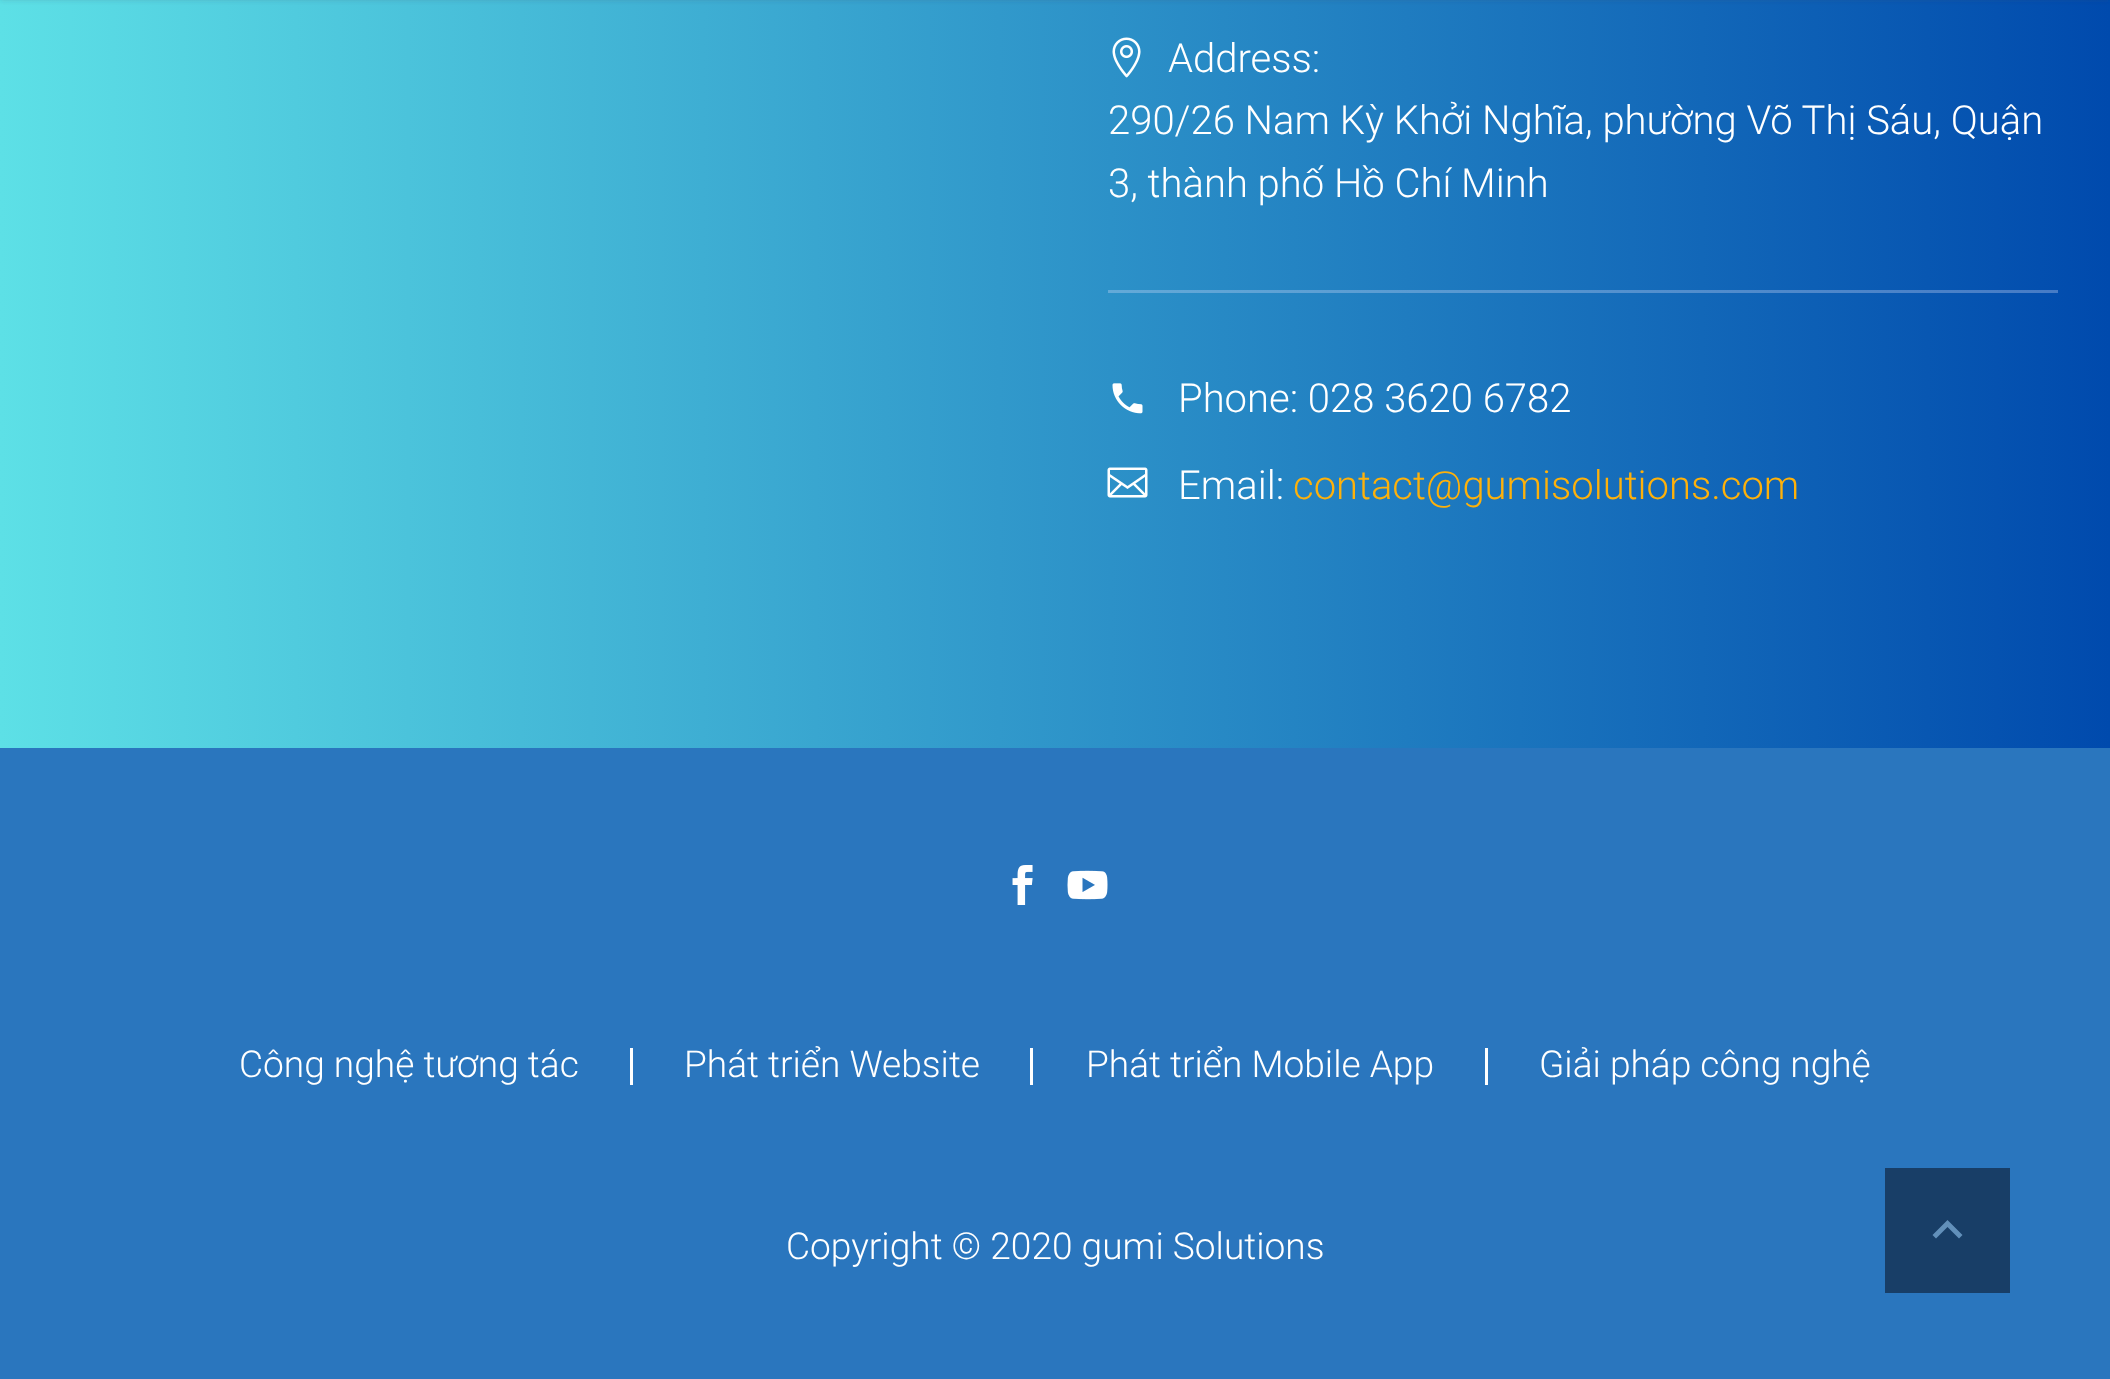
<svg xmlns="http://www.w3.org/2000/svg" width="2110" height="1379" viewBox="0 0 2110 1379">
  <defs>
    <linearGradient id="g1" gradientUnits="userSpaceOnUse" x1="0" y1="-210" x2="2110" y2="-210"><stop offset="0" stop-color="#5de0e6"/><stop offset="1" stop-color="#004aad"/></linearGradient>
    <filter id="blur1" x="-50%" y="-200%" width="200%" height="500%"><feGaussianBlur stdDeviation="2.5"/></filter>
    <linearGradient id="g2" gradientUnits="userSpaceOnUse" x1="0" y1="-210" x2="2110" y2="-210"><stop offset="0" stop-color="#85e0ed"/><stop offset="1" stop-color="#4579c5"/></linearGradient>
  </defs>
  <rect width="100%" height="100%" fill="#2a76be"/>
  <rect x="0" y="0" width="2110" height="748" fill="url(#g1)"/>
  <rect x="0" y="-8" width="2110" height="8" fill="#384554" fill-opacity="0.2" filter="url(#blur1)"/>
  <rect x="1108" y="290" width="950" height="3" fill="url(#g2)"/>
  <image x="1112" y="37" width="29" height="41" href="img1.png"/>
  <text x="1168" y="72" font-family="Roboto" font-size="40" font-weight="300" fill="#ffffff">Address:</text>
  <text x="1108" y="134" font-family="Roboto" font-size="40" font-weight="300" fill="#ffffff">290/26 Nam Kỳ Khởi Nghĩa, phường Võ Thị Sáu, Quận</text>
  <text x="1108" y="197" font-family="Roboto" font-size="40" font-weight="300" fill="#ffffff">3, thành phố Hồ Chí Minh</text>
  <image x="1112" y="383" width="31" height="31" href="img2.png"/>
  <text x="1178" y="412" font-family="Roboto" font-size="40" font-weight="300" fill="#ffffff">Phone: 028 3620 6782</text>
  <image x="1107" y="467" width="41" height="31" href="img3.png"/>
  <text x="1178" y="499" font-family="Roboto" font-size="40" font-weight="300" fill="#ffffff">Email:</text>
  <text x="1293" y="499" font-family="Roboto" font-size="40" font-weight="300" fill="#feb10a">contact@gumisolutions.com</text>
  <image x="1012" y="865" width="21" height="40" href="img4.png"/>
  <image x="1067" y="870" width="41" height="30" href="img5.png"/>
  <text x="239" y="1077" font-family="Roboto" font-size="37.1" font-weight="300" fill="#ffffff">Công nghệ tương tác</text>
  <rect x="630" y="1048" width="3" height="37" fill="#ffffff"/>
  <text x="684" y="1077" font-family="Roboto" font-size="37.1" font-weight="300" fill="#ffffff">Phát triển Website</text>
  <rect x="1030" y="1048" width="3" height="37" fill="#ffffff"/>
  <text x="1086" y="1077" font-family="Roboto" font-size="37.1" font-weight="300" fill="#ffffff">Phát triển Mobile App</text>
  <rect x="1485" y="1048" width="3" height="37" fill="#ffffff"/>
  <text x="1539" y="1077" font-family="Roboto" font-size="37.1" font-weight="300" fill="#ffffff">Giải pháp công nghệ</text>
  <text x="786" y="1259" font-family="Roboto" font-size="37.1" font-weight="300" fill="#ffffff">Copyright © 2020 gumi Solutions</text>
  <rect x="1885" y="1168" width="125" height="125" fill="#183e67"/>
  <path d="M1936 1238.5L1947.5 1227L1959 1238.5L1962.5 1235L1947.5 1220L1932.5 1235Z" fill="#6290ba"/>
</svg>
